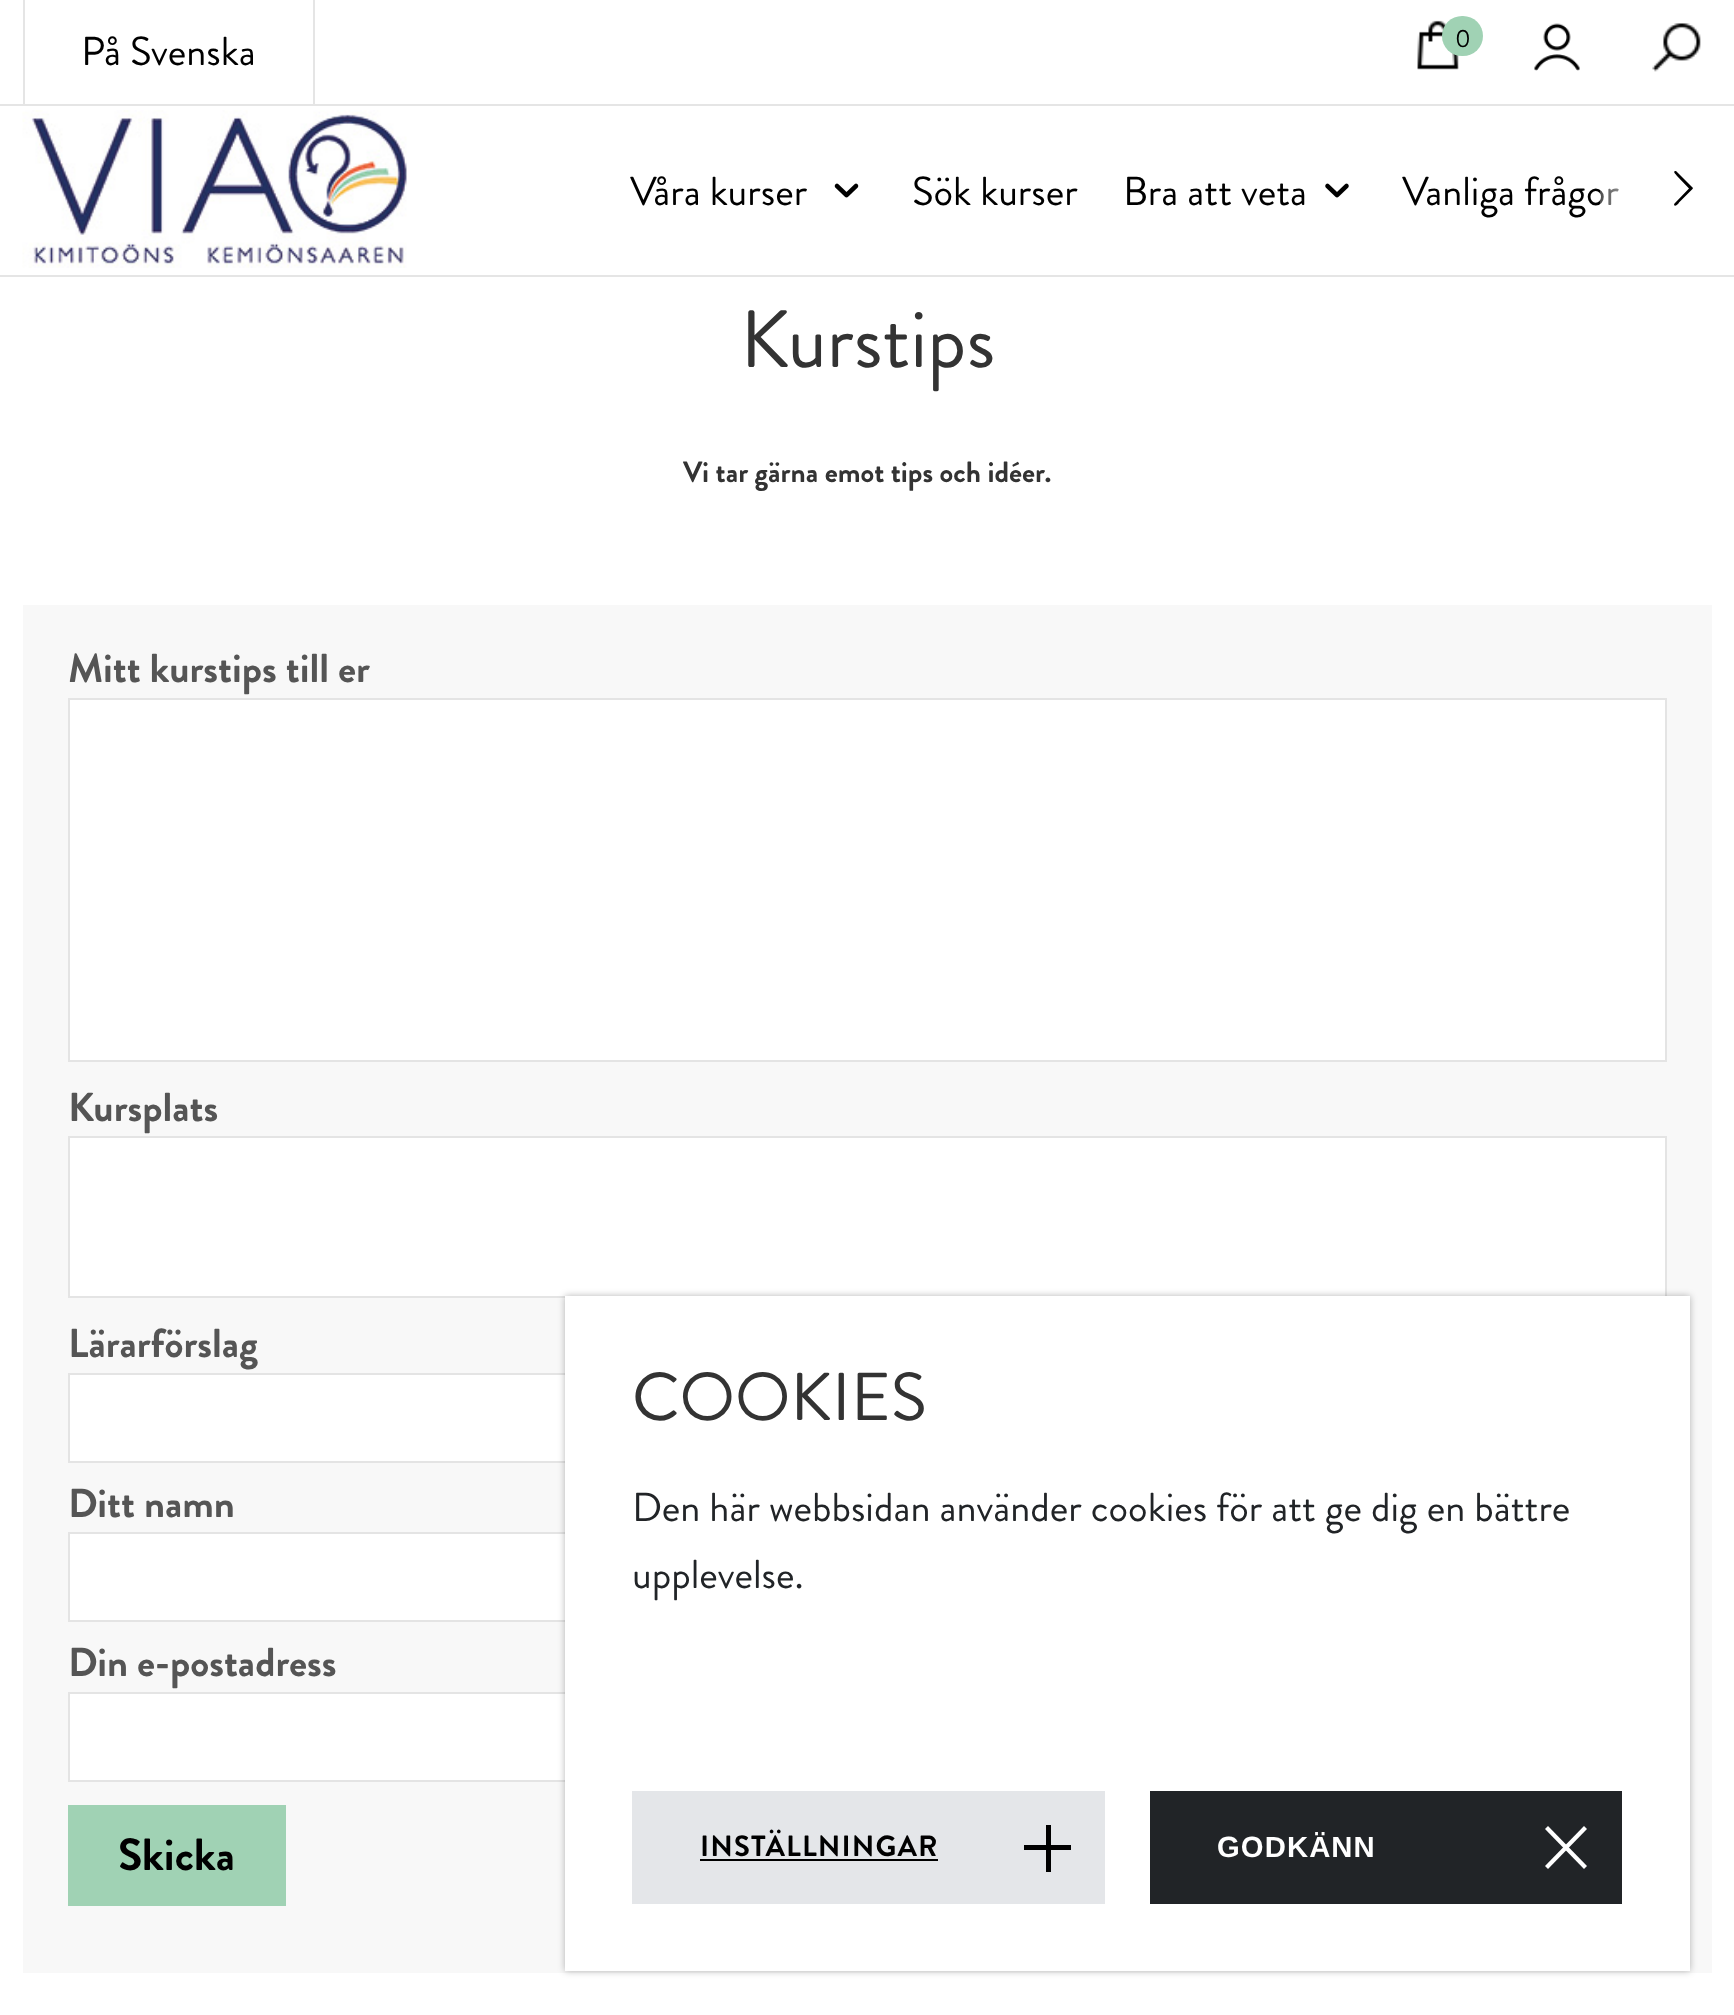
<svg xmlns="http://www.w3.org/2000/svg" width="1734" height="2015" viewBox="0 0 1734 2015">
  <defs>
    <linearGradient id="g1" gradientUnits="userSpaceOnUse" x1="1712" y1="190" x2="1600" y2="190"><stop offset="0.5" stop-color="#ffffff"/><stop offset="1" stop-color="#ffffff" stop-opacity="0.3"/></linearGradient>
    <filter id="blur1" x="-50%" y="-200%" width="200%" height="500%"><feGaussianBlur stdDeviation="3.5"/></filter>
  </defs>
  <rect width="100%" height="100%" fill="#ffffff"/>
  <rect x="0" y="275" width="1734" height="2" fill="#e5e5e5"/>
  <rect x="313" y="0" width="2" height="104" fill="#e5e5e5"/>
  <rect x="23" y="0" width="2" height="104" fill="#e5e5e5"/>
  <text x="81" y="65" font-family="Brandon Grotesque" font-size="40.5" fill="#000000">På Svenska</text>
  <image x="1417" y="20" width="42" height="50" href="img1.png"/>
  <rect x="1442" y="16" width="41" height="40" rx="20" fill="#a0d2b4"/>
  <text x="1455" y="47" font-family="Brandon Grotesque" font-size="25" fill="#000000">0</text>
  <image x="1534" y="23" width="46" height="48" href="img2.png"/>
  <image x="1652" y="23" width="49" height="49" href="img3.png"/>
  <rect x="0" y="104" width="1734" height="2" fill="#e5e5e5"/>
  <image x="22" y="110" width="385" height="158" href="img4.png"/>
  <text x="630" y="205" font-family="Brandon Grotesque" font-size="40.5" fill="#000000">Våra kurser</text>
  <image x="834" y="183" width="25" height="15" href="img5.png"/>
  <text x="912" y="205" font-family="Brandon Grotesque" font-size="40.5" fill="#000000">Sök kurser</text>
  <text x="1123" y="205" font-family="Brandon Grotesque" font-size="40.5" fill="#000000">Bra att veta</text>
  <image x="1325" y="183" width="24" height="15" href="img6.png"/>
  <text x="1402" y="205" font-family="Brandon Grotesque" font-size="40.5" fill="#000000">Vanliga frågor</text>
  <rect x="1600" y="188" width="19" height="17" fill="url(#g1)"/>
  <path d="M1674.5 203.5L1689 188.5L1677 176C1676.5 175 1672 171.5 1675.5 171H1676L1693 188L1692.5 189L1679 202.5C1679 203 1675 208 1674 204.5Z" fill="#000000"/>
  <text x="740" y="367" font-family="Brandon Grotesque" font-size="81" fill="#333333">Kurstips</text>
  <text x="683" y="482" font-family="Brandon Grotesque" font-size="29.25" font-weight="bold" fill="#333333">Vi tar gärna emot tips och idéer.</text>
  <rect x="23" y="605" width="1689" height="1368" fill="#f8f8f8"/>
  <text x="68" y="682" font-family="Brandon Grotesque" font-size="40.5" font-weight="bold" fill="#555555">Mitt kurstips till er</text>
  <rect x="69" y="699" width="1597" height="362" fill="#ffffff" stroke="#e4e4e4" stroke-width="2"/>
  <text x="68" y="1121" font-family="Brandon Grotesque" font-size="40.5" font-weight="bold" fill="#555555">Kursplats</text>
  <rect x="69" y="1137" width="1597" height="160" fill="#ffffff" stroke="#e4e4e4" stroke-width="2"/>
  <text x="68" y="1357" font-family="Brandon Grotesque" font-size="40.5" font-weight="bold" fill="#555555">Lärarförslag</text>
  <rect x="70" y="1375" width="495" height="86" fill="#ffffff"/>
  <rect x="69" y="1374" width="1597" height="88" fill="none" stroke="#e4e4e4" stroke-width="2"/>
  <text x="68" y="1517" font-family="Brandon Grotesque" font-size="40.5" font-weight="bold" fill="#555555">Ditt namn</text>
  <rect x="70" y="1534" width="495" height="86" fill="#ffffff"/>
  <rect x="69" y="1533" width="1597" height="88" fill="none" stroke="#e4e4e4" stroke-width="2"/>
  <text x="68" y="1676" font-family="Brandon Grotesque" font-size="40.5" font-weight="bold" fill="#555555">Din e-postadress</text>
  <rect x="70" y="1694" width="495" height="86" fill="#ffffff"/>
  <rect x="69" y="1693" width="1597" height="88" fill="none" stroke="#e4e4e4" stroke-width="2"/>
  <rect x="68" y="1805" width="218" height="101" fill="#a0d2b4"/>
  <text x="118" y="1870" font-family="Brandon Grotesque" font-size="45" font-weight="bold" fill="#000000">Skicka</text>
  <rect x="565" y="1296" width="1125" height="675" fill="#000000" fill-opacity="0.29" filter="url(#blur1)"/>
  <rect x="565" y="1296" width="1125" height="675" fill="#ffffff"/>
  <text x="632" y="1420" font-family="Brandon Grotesque" font-size="67.5" fill="#333333">COOKIES</text>
  <text x="632" y="1521" font-family="Brandon Grotesque" font-size="40.5" fill="#212427">Den här webbsidan använder cookies för att ge dig en bättre</text>
  <text x="632" y="1588" font-family="Brandon Grotesque" font-size="40.5" fill="#212427">upplevelse.</text>
  <rect x="632" y="1791" width="473" height="113" fill="#e4e6e9"/>
  <text x="700" y="1856" font-family="Brandon Grotesque" font-size="29.25" font-weight="bold" letter-spacing="1.1" fill="#000000">INSTÄLLNINGAR</text>
  <rect x="700" y="1859" width="238" height="2" fill="#000000"/>
  <rect x="1046" y="1825" width="5" height="47" fill="#000000"/>
  <rect x="1024" y="1845" width="47" height="5" fill="#000000"/>
  <rect x="1150" y="1791" width="472" height="113" fill="#212427"/>
  <text x="1217" y="1857" font-family="Liberation Sans" font-size="29.25" font-weight="bold" letter-spacing="1.1" fill="#ffffff">GODKÄNN</text>
  <path d="M1584 1826L1587 1829L1548 1869L1545 1866Z" fill="#ffffff"/>
  <path d="M1548 1826L1587 1866L1584 1869L1545 1829Z" fill="#ffffff"/>
</svg>
